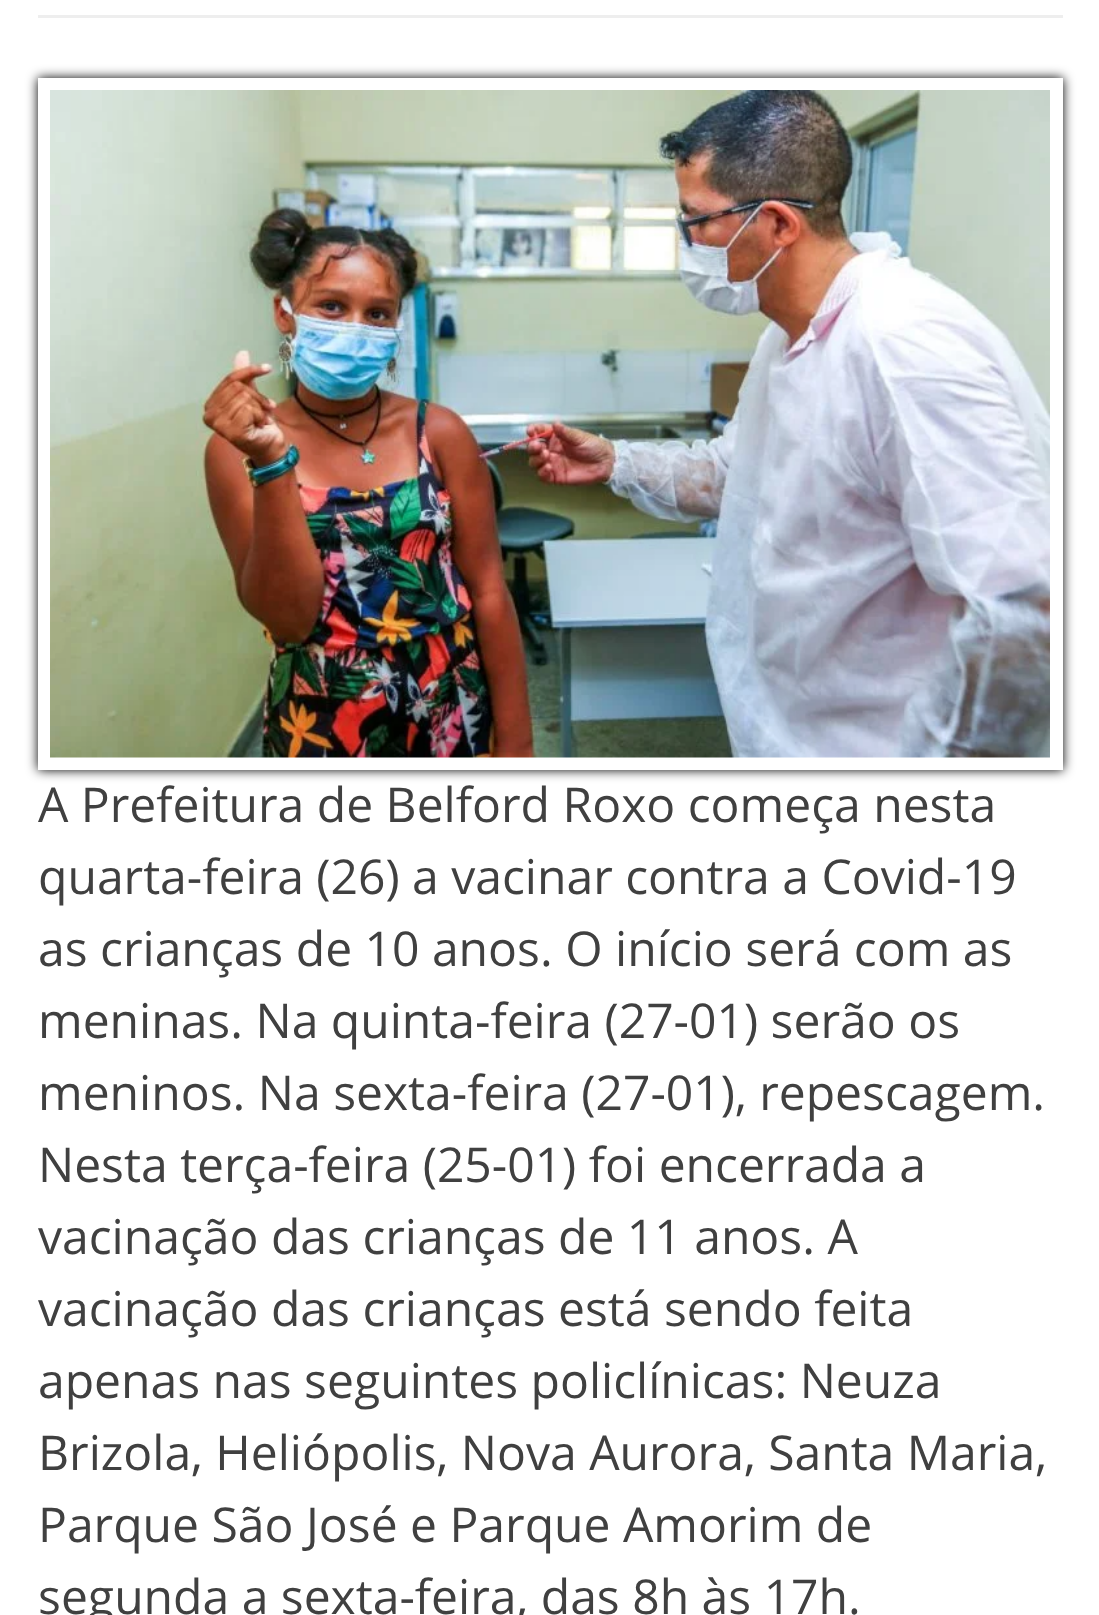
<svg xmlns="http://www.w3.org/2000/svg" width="1099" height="1615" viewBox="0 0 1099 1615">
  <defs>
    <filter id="blur1" x="-50%" y="-200%" width="200%" height="500%"><feGaussianBlur stdDeviation="6"/></filter>
  </defs>
  <rect width="100%" height="100%" fill="#ffffff"/>
  <rect x="38" y="15" width="1025" height="3" fill="#eeeeee"/>
  <rect x="38" y="78" width="1025" height="692" fill="#000000" filter="url(#blur1)"/>
  <rect x="44.5" y="84.5" width="1012" height="679" fill="none" stroke="#ffffff" stroke-width="13"/>
  <image x="50" y="90" width="1000" height="668" href="img1.png"/>
  <text x="38" y="822" font-family="Open Sans" font-size="48" fill="#404040">A Prefeitura de Belford Roxo começa nesta</text>
  <text x="38" y="894" font-family="Open Sans" font-size="48" fill="#404040">quarta-feira (26) a vacinar contra a Covid-19</text>
  <text x="38" y="966" font-family="Open Sans" font-size="48" fill="#404040">as crianças de 10 anos. O início será com as</text>
  <text x="38" y="1038" font-family="Open Sans" font-size="48" fill="#404040">meninas. Na quinta-feira (27-01) serão os</text>
  <text x="38" y="1110" font-family="Open Sans" font-size="48" fill="#404040">meninos. Na sexta-feira (27-01), repescagem.</text>
  <text x="38" y="1182" font-family="Open Sans" font-size="48" fill="#404040">Nesta terça-feira (25-01) foi encerrada a</text>
  <text x="38" y="1254" font-family="Open Sans" font-size="48" fill="#404040">vacinação das crianças de 11 anos. A</text>
  <text x="38" y="1326" font-family="Open Sans" font-size="48" fill="#404040">vacinação das crianças está sendo feita</text>
  <text x="38" y="1398" font-family="Open Sans" font-size="48" fill="#404040">apenas nas seguintes policlínicas: Neuza</text>
  <text x="38" y="1470" font-family="Open Sans" font-size="48" fill="#404040">Brizola, Heliópolis, Nova Aurora, Santa Maria,</text>
  <text x="38" y="1542" font-family="Open Sans" font-size="48" fill="#404040">Parque São José e Parque Amorim de</text>
  <text x="38" y="1614" font-family="Open Sans" font-size="48" fill="#404040">segunda a sexta-feira, das 8h às 17h.</text>
</svg>
